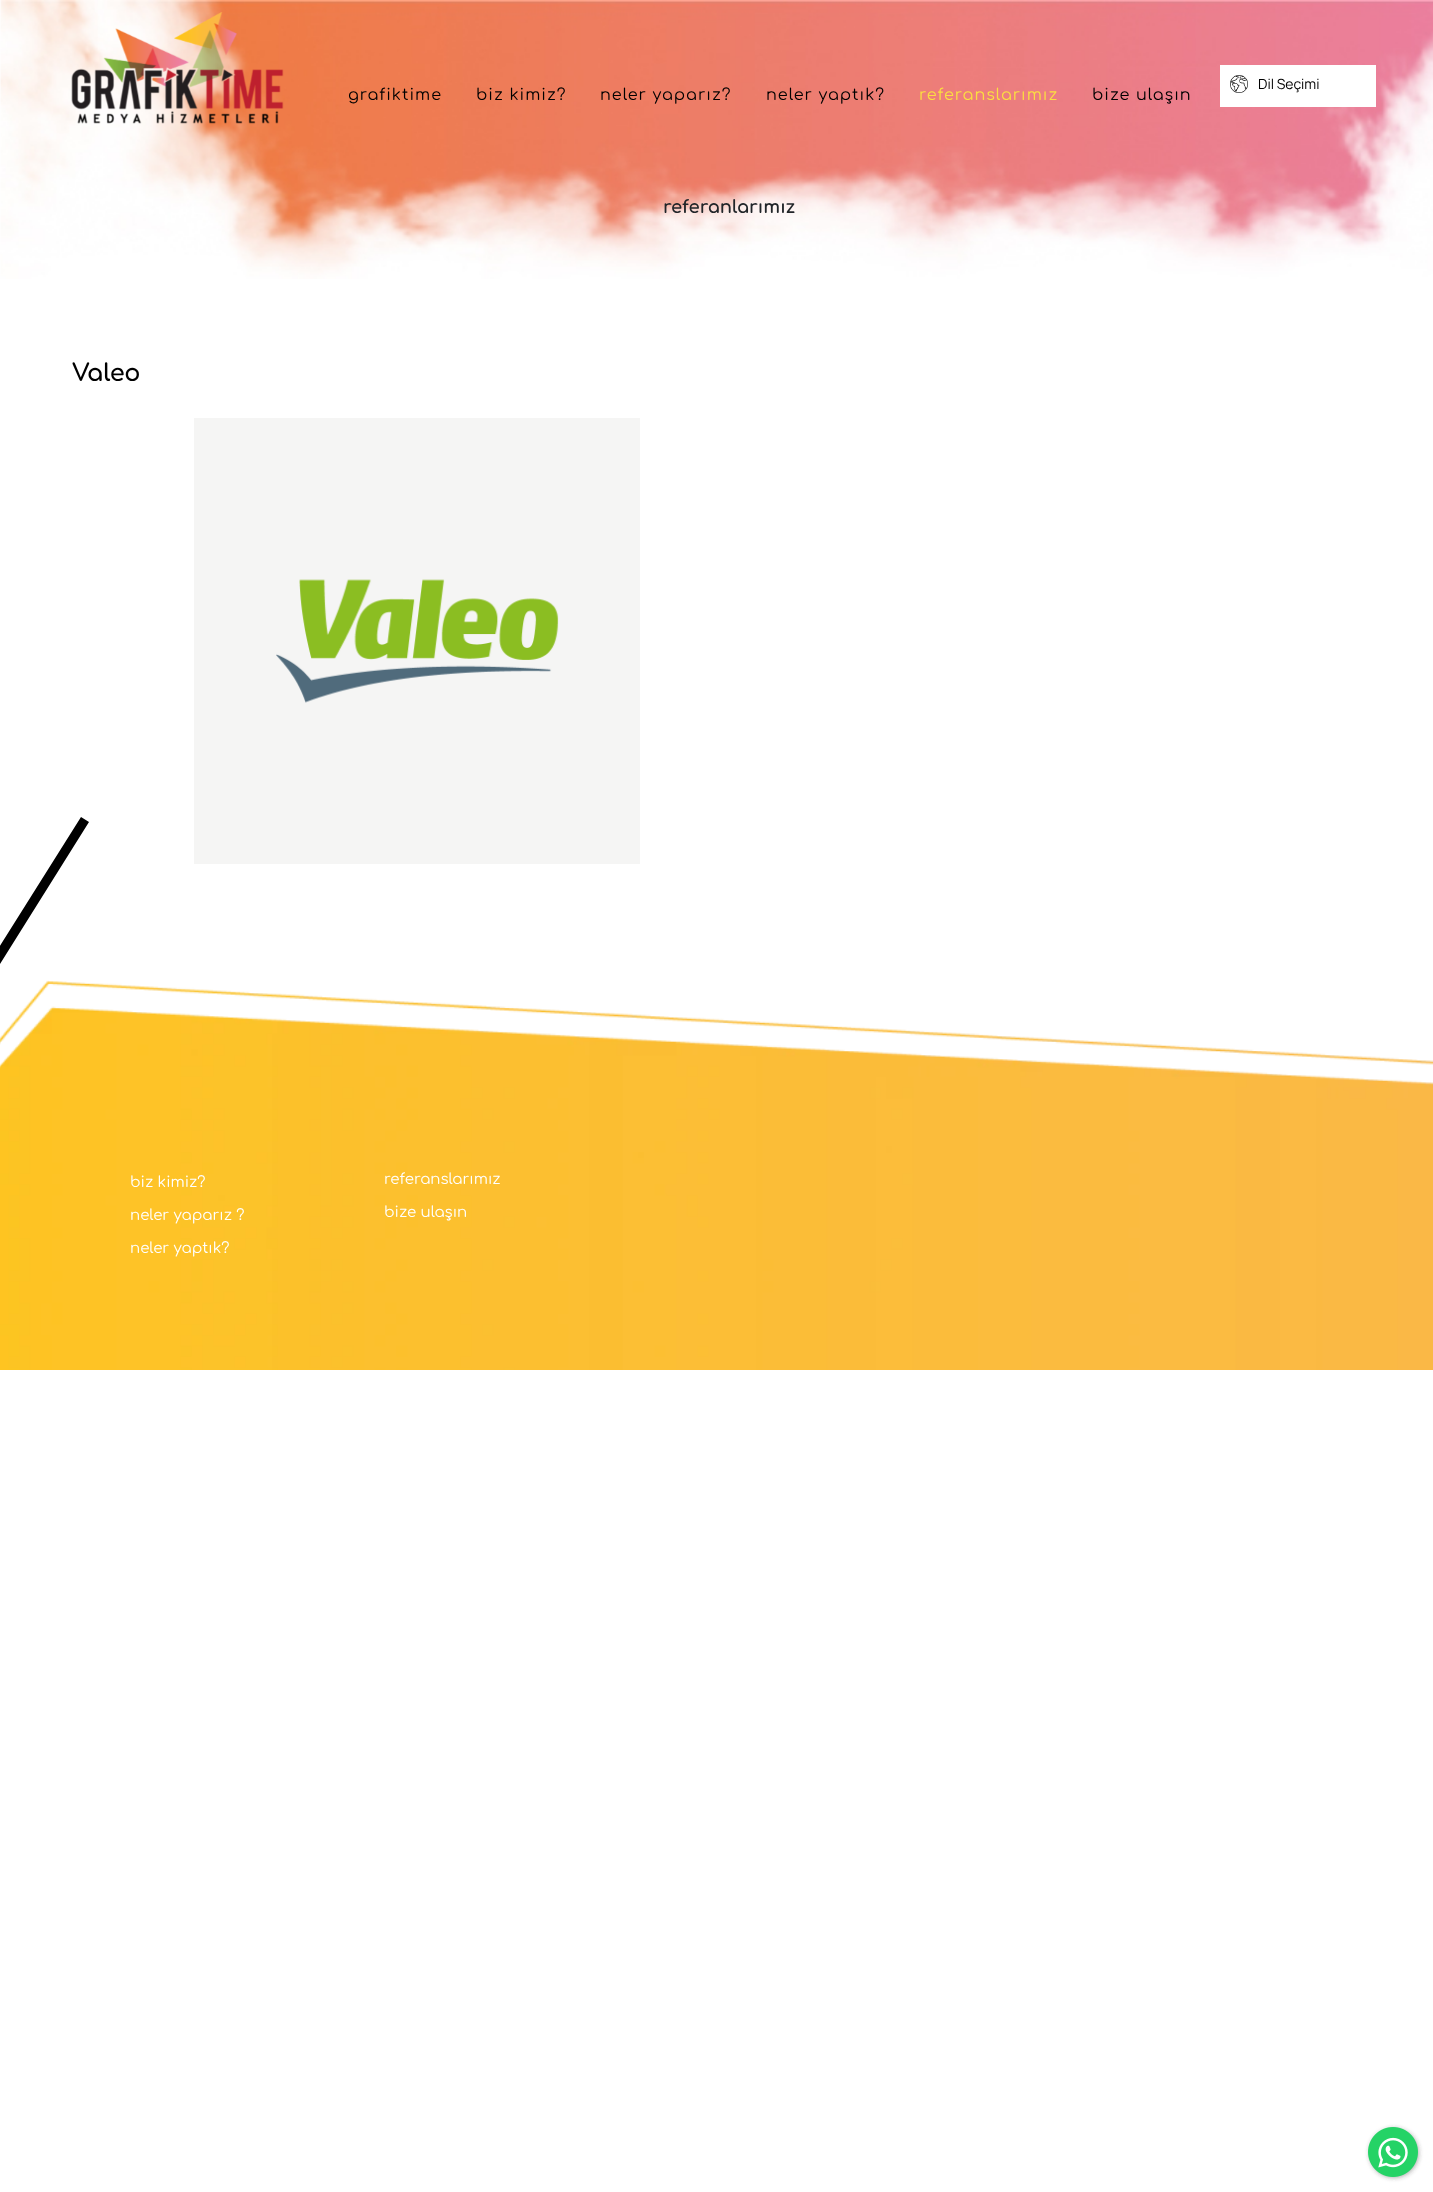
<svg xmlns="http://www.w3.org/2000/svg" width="1433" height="2192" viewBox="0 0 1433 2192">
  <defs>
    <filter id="blur1" x="-50%" y="-200%" width="200%" height="500%"><feGaussianBlur stdDeviation="2"/></filter>
  </defs>
  <rect width="100%" height="100%" fill="#ffffff"/>
  <image x="0" y="0" width="1433" height="279" href="img3.png"/>
  <image x="71" y="12" width="213" height="112" href="img1.png"/>
  <rect x="1220" y="65" width="156" height="42" fill="#ffffff"/>
  <image x="1230" y="75" width="18" height="18" href="img2.png"/>
  <text x="1258" y="89" font-family="Manrope" font-size="14" fill="#000000">Dil Seçimi</text>
  <text x="348" y="100" font-family="Comfortaa" font-size="16" letter-spacing="1" fill="#000000">grafiktime</text>
  <text x="476" y="100" font-family="Comfortaa" font-size="16" letter-spacing="1" fill="#000000">biz kimiz?</text>
  <text x="600" y="100" font-family="Comfortaa" font-size="16" letter-spacing="1" fill="#000000">neler yaparız?</text>
  <text x="766" y="100" font-family="Comfortaa" font-size="16" letter-spacing="1" fill="#000000">neler yaptık?</text>
  <text x="919" y="100" font-family="Comfortaa" font-size="16" letter-spacing="1" fill="#fbdf40">referanslarımız</text>
  <text x="1092" y="100" font-family="Comfortaa" font-size="16" letter-spacing="1" fill="#000000">bize ulaşın</text>
  <text x="663" y="213" font-family="Comfortaa" font-size="18" font-weight="bold" fill="#212529">referanlarımız</text>
  <text x="72" y="381" font-family="Comfortaa" font-size="24" font-weight="bold" fill="#000000">Valeo</text>
  <image x="194" y="418" width="446" height="446" href="img4.png"/>
  <path d="M-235 883L-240 892L-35 1020L89 822L81 817L-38 1006Z" fill="#000000"/>
  <image x="0" y="980" width="1433" height="390" href="img5.png"/>
  <text x="130" y="1187" font-family="Comfortaa" font-size="15" fill="#ffffff">biz kimiz?</text>
  <text x="130" y="1220" font-family="Comfortaa" font-size="15" fill="#ffffff">neler yaparız ?</text>
  <text x="130" y="1253" font-family="Comfortaa" font-size="15" fill="#ffffff">neler yaptık?</text>
  <text x="384" y="1184" font-family="Comfortaa" font-size="15" fill="#ffffff">referanslarımız</text>
  <text x="384" y="1217" font-family="Comfortaa" font-size="15" fill="#ffffff">bize ulaşın</text>
  <rect x="1369" y="2128" width="50" height="50" rx="25" fill="#3c3c3c" fill-opacity="0.4" filter="url(#blur1)"/>
  <image x="1368" y="2127" width="50" height="50" href="img6.png"/>
</svg>
